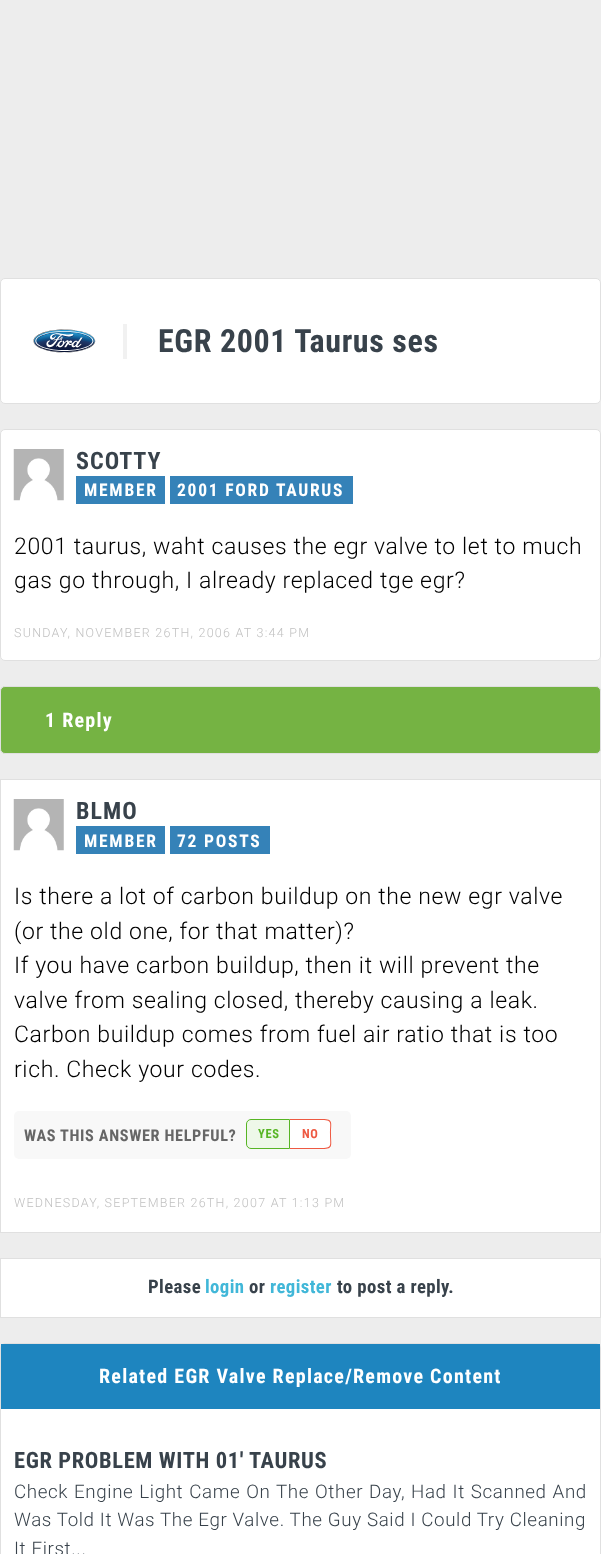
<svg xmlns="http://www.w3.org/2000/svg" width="601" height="1554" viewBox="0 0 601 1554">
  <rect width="100%" height="100%" fill="#ededed"/>
  <rect x="0.5" y="278.5" width="600" height="125" rx="4.5" fill="#ffffff" stroke="#e0e0e0"/>
  <image x="33" y="329" width="63" height="24" href="img1.png"/>
  <rect x="123" y="324" width="4" height="35" fill="#f1f1f1"/>
  <text x="158" y="352" font-family="Roboto Condensed" font-size="32" font-weight="bold" letter-spacing="0.62" fill="#38424b">EGR 2001 Taurus ses</text>
  <rect x="0.5" y="429.5" width="600" height="231" rx="4.5" fill="#ffffff" stroke="#e0e0e0"/>
  <image x="13" y="449" width="51" height="52" href="img2.png"/>
  <text x="76" y="469" font-family="Roboto Condensed" font-size="24" font-weight="bold" letter-spacing="1" fill="#38424b">SCOTTY</text>
  <rect x="76" y="476" width="89" height="28" fill="#3582b8"/>
  <text x="84" y="496" font-family="Roboto Condensed" font-size="17.5" font-weight="bold" letter-spacing="1.75" fill="#ffffff">MEMBER</text>
  <rect x="170" y="476" width="183" height="28" fill="#3582b8"/>
  <text x="177" y="496" font-family="Roboto Condensed" font-size="17.5" font-weight="bold" letter-spacing="1.75" fill="#ffffff">2001 FORD TAURUS</text>
  <text x="14" y="554" font-family="Roboto" font-size="23" font-weight="300" letter-spacing="0.62" fill="#000000">2001 taurus, waht causes the egr valve to let to much</text>
  <text x="14" y="588" font-family="Roboto" font-size="23" font-weight="300" letter-spacing="0.62" fill="#000000">gas go through, I already replaced tge egr?</text>
  <text x="14" y="637" font-family="Roboto" font-size="12.5" font-weight="300" letter-spacing="1.25" fill="#c1c1c1">SUNDAY, NOVEMBER 26TH, 2006 AT 3:44 PM</text>
  <rect x="0.5" y="686.5" width="600" height="67" rx="4.5" fill="#75b343" stroke="#e0e0e0"/>
  <text x="45" y="727" font-family="Roboto Condensed" font-size="20" font-weight="bold" letter-spacing="1.25" fill="#ffffff">1 Reply</text>
  <rect x="0.5" y="779.5" width="600" height="453" fill="#ffffff" stroke="#e0e0e0"/>
  <image x="13" y="799" width="51" height="52" href="img2.png"/>
  <text x="76" y="819" font-family="Roboto Condensed" font-size="24" font-weight="bold" letter-spacing="1" fill="#38424b">BLMO</text>
  <rect x="76" y="826" width="89" height="28" fill="#3582b8"/>
  <text x="84" y="847" font-family="Roboto Condensed" font-size="17.5" font-weight="bold" letter-spacing="1.75" fill="#ffffff">MEMBER</text>
  <rect x="170" y="826" width="100" height="28" fill="#3582b8"/>
  <text x="177" y="847" font-family="Roboto Condensed" font-size="17.5" font-weight="bold" letter-spacing="1.75" fill="#ffffff">72 POSTS</text>
  <text x="14" y="904" font-family="Roboto" font-size="23" font-weight="300" letter-spacing="0.62" fill="#000000">Is there a lot of carbon buildup on the new egr valve</text>
  <text x="14" y="939" font-family="Roboto" font-size="23" font-weight="300" letter-spacing="0.62" fill="#000000">(or the old one, for that matter)?</text>
  <text x="14" y="973" font-family="Roboto" font-size="23" font-weight="300" letter-spacing="0.62" fill="#000000">If you have carbon buildup, then it will prevent the</text>
  <text x="14" y="1008" font-family="Roboto" font-size="23" font-weight="300" letter-spacing="0.62" fill="#000000">valve from sealing closed, thereby causing a leak.</text>
  <text x="14" y="1042" font-family="Roboto" font-size="23" font-weight="300" letter-spacing="0.62" fill="#000000">Carbon buildup comes from fuel air ratio that is too</text>
  <text x="14" y="1077" font-family="Roboto" font-size="23" font-weight="300" letter-spacing="0.62" fill="#000000">rich. Check your codes.</text>
  <rect x="14" y="1111" width="337" height="48" rx="5" fill="#f8f8f8"/>
  <text x="24" y="1141" font-family="Roboto Condensed" font-size="16.25" font-weight="bold" letter-spacing="0.62" fill="#666666">WAS THIS ANSWER HELPFUL?</text>
  <path d="M251 1119.5H289.5V1148.5H251C248.5 1148.5 246.5 1146.5 246.5 1144V1124C246.5 1121.5 248.5 1119.5 251 1119.5Z" fill="#eef8e9" stroke="#57b524"/>
  <text x="258" y="1138" font-family="Roboto Condensed" font-size="12.5" font-weight="bold" letter-spacing="0.62" fill="#57b524">YES</text>
  <path d="M290 1119H326C329 1119 331 1121 331 1124V1144C331 1147 329 1149 326 1149H290Z" fill="#ffffff"/>
  <path d="M290 1119H320C334 1119 331 1121 331 1134C331 1147 334 1149 320 1149H290ZM290 1120H320C333 1120 330 1122 330 1134C330 1146 333 1148 320 1148H290Z" fill="#ee5942" fill-rule="evenodd"/>
  <text x="302" y="1138" font-family="Roboto Condensed" font-size="12.5" font-weight="bold" letter-spacing="0.62" fill="#ee5942">NO</text>
  <text x="14" y="1207" font-family="Roboto" font-size="12.5" font-weight="300" letter-spacing="1.25" fill="#c1c1c1">WEDNESDAY, SEPTEMBER 26TH, 2007 AT 1:13 PM</text>
  <rect x="0.5" y="1258.5" width="600" height="59" fill="#ffffff" stroke="#e0e0e0"/>
  <text x="148" y="1293" font-family="Roboto Condensed" font-size="18.75" font-weight="bold" letter-spacing="0.4" fill="#38424b">Please</text>
  <text x="205" y="1293" font-family="Roboto Condensed" font-size="18.75" font-weight="bold" letter-spacing="0.4" fill="#41b7d8">login</text>
  <text x="249" y="1293" font-family="Roboto Condensed" font-size="18.75" font-weight="bold" letter-spacing="0.4" fill="#38424b">or</text>
  <text x="270" y="1293" font-family="Roboto Condensed" font-size="18.75" font-weight="bold" letter-spacing="0.4" fill="#41b7d8">register</text>
  <text x="337" y="1293" font-family="Roboto Condensed" font-size="18.75" font-weight="bold" letter-spacing="0.4" fill="#38424b">to post a reply.</text>
  <rect x="0.5" y="1343.5" width="600" height="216" rx="4.5" fill="#ffffff" stroke="#e0e0e0"/>
  <rect x="1" y="1344" width="599" height="65" fill="#1e85bf"/>
  <text x="99" y="1383" font-family="Roboto Condensed" font-size="20" font-weight="bold" letter-spacing="1.25" fill="#ffffff">Related EGR Valve Replace/Remove Content</text>
  <text x="14" y="1468" font-family="Roboto Condensed" font-size="22.5" font-weight="bold" letter-spacing="0.62" fill="#38424b">EGR PROBLEM WITH 01' TAURUS</text>
  <text x="14" y="1498" word-spacing="0.75" font-family="Roboto" font-size="18.75" font-weight="300" letter-spacing="0.62" fill="#38424b">Check Engine Light Came On The Other Day,</text>
  <text x="411" y="1498" word-spacing="0.75" font-family="Roboto" font-size="18.75" font-weight="300" letter-spacing="0.62" fill="#38424b">Had It Scanned And</text>
  <text x="14" y="1526" font-family="Roboto" font-size="18.75" font-weight="300" letter-spacing="0.62" fill="#38424b">Was Told It Was The Egr Valve. The Guy Said I Could Try Cleaning</text>
  <text x="14" y="1555" font-family="Roboto" font-size="18.75" font-weight="300" letter-spacing="0.62" fill="#38424b">It First...</text>
</svg>
